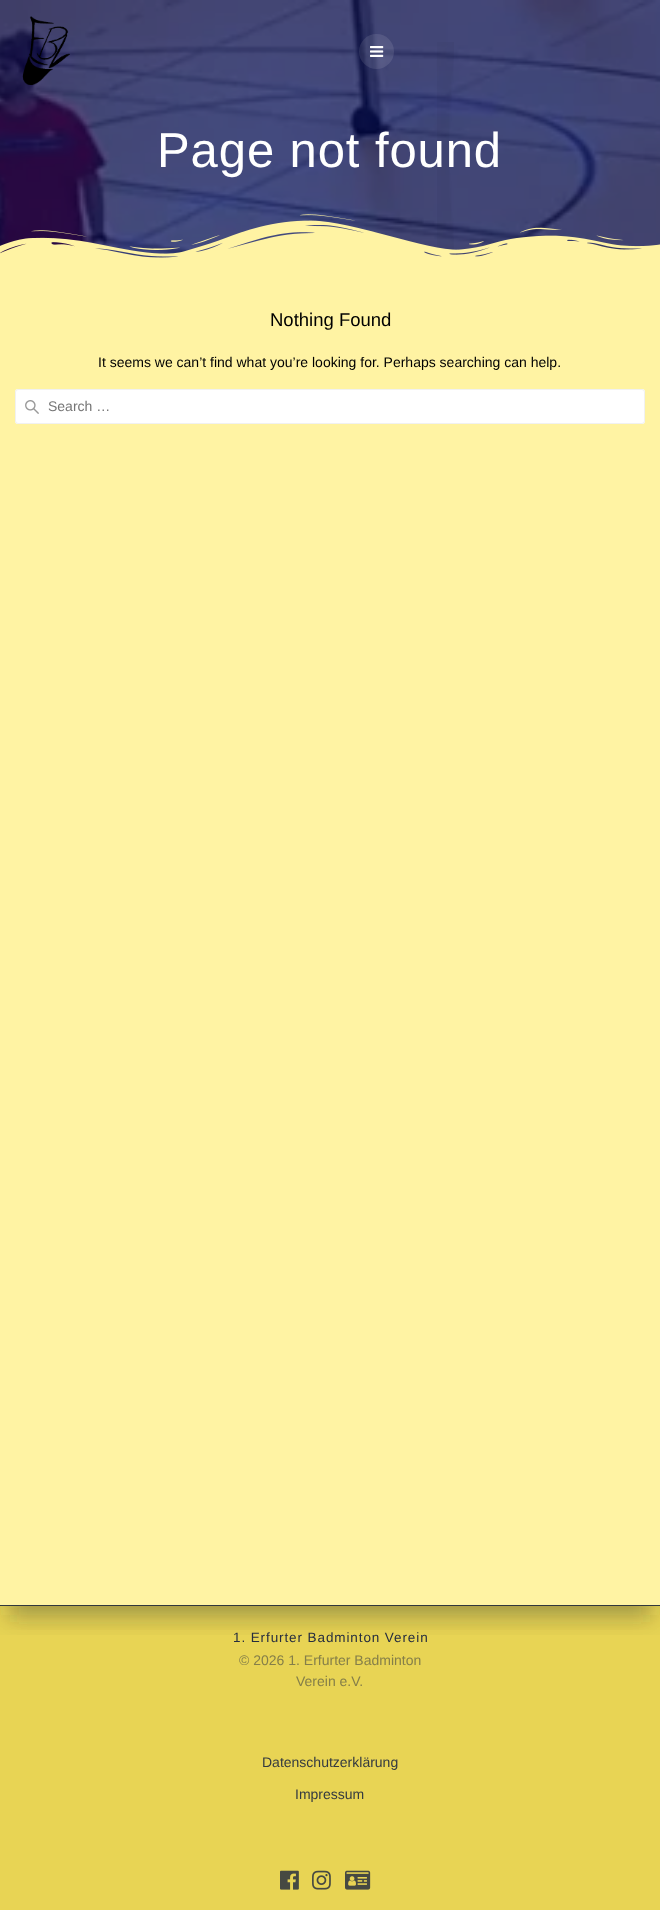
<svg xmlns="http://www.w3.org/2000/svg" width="660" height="1910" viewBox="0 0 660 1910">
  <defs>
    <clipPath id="clip1"><rect x="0" y="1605" width="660" height="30"/></clipPath>
    <filter id="blur1" x="-50%" y="-200%" width="200%" height="500%"><feGaussianBlur stdDeviation="15"/></filter>
    <clipPath id="clip2"><rect x="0" y="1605" width="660" height="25"/></clipPath>
    <filter id="blur2" x="-50%" y="-200%" width="200%" height="500%"><feGaussianBlur stdDeviation="10"/></filter>
  </defs>
  <rect width="100%" height="100%" fill="#fff3a3"/>
  <image x="0" y="0" width="660" height="258" href="img3.png"/>
  <image x="22" y="16" width="48" height="69" href="img1.png"/>
  <circle cx="376.5" cy="51.5" r="17.5" fill="#ffffff" fill-opacity="0.1"/>
  <image x="370" y="46" width="14" height="11" href="img2.png"/>
  <image x="437" y="42" width="17" height="215" href="img4.png"/>
  <text x="157" y="167" font-family="Liberation Sans" font-size="49" letter-spacing="0.9" fill="#ffffff">Page not found</text>
  <image x="0" y="214" width="660" height="48" href="img5.png"/>
  <rect x="0" y="1606" width="660" height="304" fill="#e8d454"/>
  <rect x="0" y="1605" width="660" height="1" fill="#343a40"/>
  <g clip-path="url(#clip1)">
    <rect x="0" y="282" width="660" height="1343" fill="#000000" fill-opacity="0.08" filter="url(#blur1)"/>
  </g>
  <g clip-path="url(#clip2)">
    <rect x="10" y="292" width="640" height="1323" fill="#313439" fill-opacity="0.3" filter="url(#blur2)"/>
  </g>
  <text x="270" y="326" font-family="Liberation Sans" font-size="18.5" fill="#000000">Nothing Found</text>
  <text x="98" y="367" font-family="Liberation Sans" font-size="14" fill="#000000">It seems we can’t find what you’re looking for. Perhaps searching can help.</text>
  <rect x="15" y="389" width="630" height="35" rx="3" fill="#ffffff"/>
  <image x="25" y="400" width="14" height="14" href="img6.png"/>
  <rect x="15.5" y="389.5" width="629" height="34" rx="2.5" fill="none" stroke="#f1f1f1"/>
  <text x="48" y="411" font-family="Liberation Sans" font-size="14" fill="#757575">Search …</text>
  <text x="233" y="1642" font-family="Liberation Sans" font-size="13.5" letter-spacing="0.9" fill="#262d3f">1. Erfurter Badminton Verein</text>
  <text x="239" y="1665" font-family="Liberation Sans" font-size="14" fill="#857f49">© 2026 1. Erfurter Badminton</text>
  <text x="296" y="1686" font-family="Liberation Sans" font-size="14" fill="#857f49">Verein e.V.</text>
  <text x="262" y="1767" font-family="Liberation Sans" font-size="14" fill="#343a40">Datenschutzerklärung</text>
  <text x="295" y="1799" font-family="Liberation Sans" font-size="14" fill="#343a40">Impressum</text>
  <image x="280" y="1870" width="19" height="20" href="img7.png"/>
  <image x="312" y="1870" width="19" height="20" href="img8.png"/>
  <image x="345" y="1870" width="26" height="20" href="img9.png"/>
</svg>
